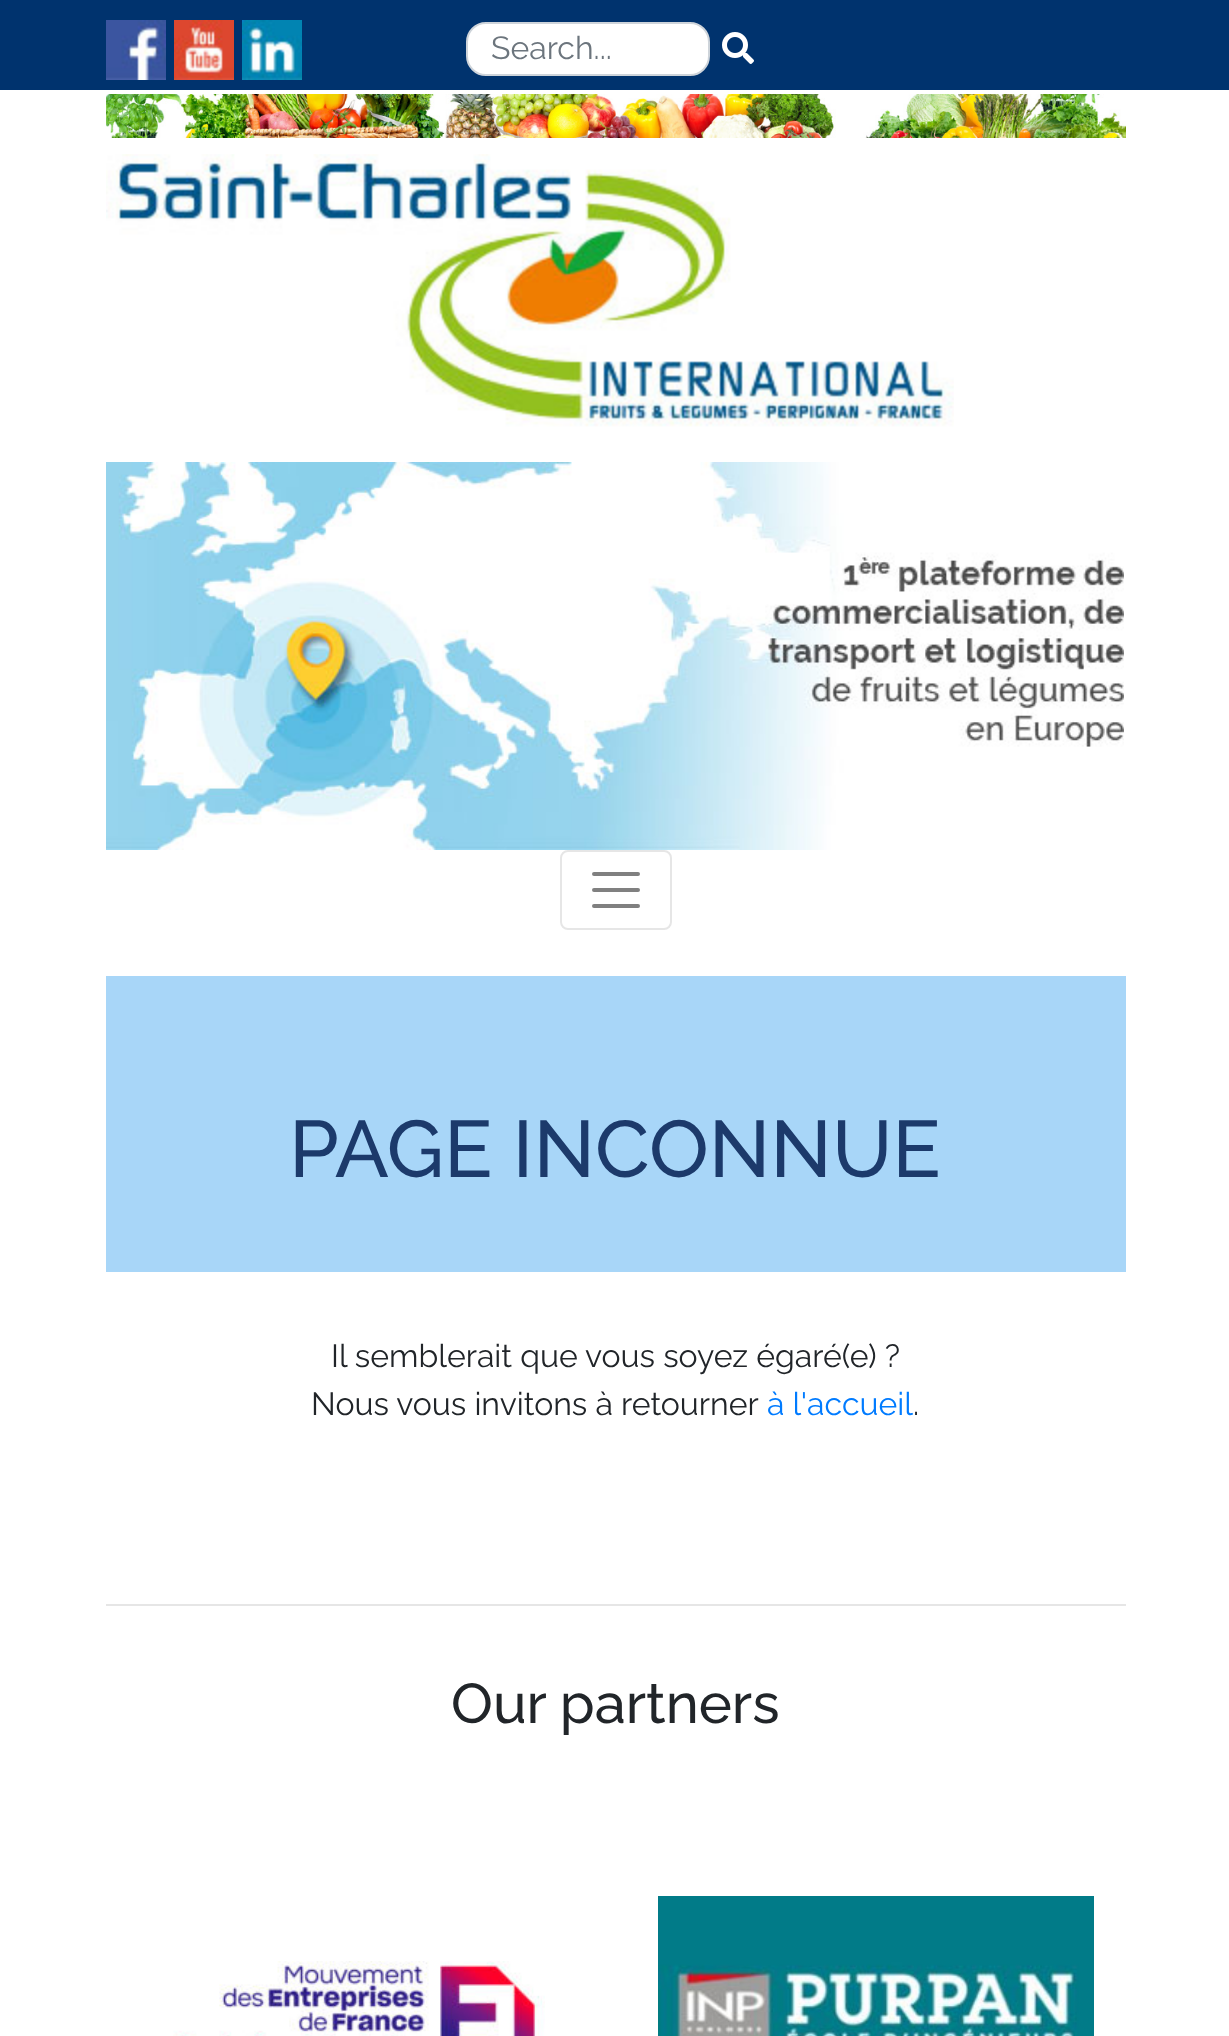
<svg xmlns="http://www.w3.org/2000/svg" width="1229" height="2036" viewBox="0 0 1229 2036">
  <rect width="100%" height="100%" fill="#ffffff"/>
  <rect x="0" y="0" width="1229" height="90" fill="#00336e"/>
  <image x="106" y="20" width="60" height="60" href="img1.png"/>
  <image x="174" y="20" width="60" height="60" href="img2.png"/>
  <image x="242" y="20" width="60" height="60" href="img3.png"/>
  <rect x="467" y="23" width="242" height="52" rx="19" fill="#ffffff" stroke="#ced4da" stroke-width="2"/>
  <text x="491" y="59" font-family="Raleway" font-size="32" fill="#6c757d">Search...</text>
  <image x="722" y="32" width="32" height="32" href="img4.png"/>
  <image x="106" y="94" width="1020" height="44" href="img5.png"/>
  <image x="106" y="154" width="848" height="273" href="img6.png"/>
  <image x="106" y="462" width="1018" height="388" href="img7.png"/>
  <rect x="561" y="851" width="110" height="78" rx="7" fill="none" stroke="#e6e6e6" stroke-width="2"/>
  <path d="M594 874H638M594 890H638M594 906H638" fill="none" stroke="#808080" stroke-width="4" stroke-linecap="round"/>
  <rect x="106" y="976" width="1020" height="296" fill="#a8d6f8"/>
  <text x="289" y="1177" font-family="Raleway" font-size="80" font-weight="500" fill="#1c3a6b">PAGE INCONNUE</text>
  <text x="331" y="1367" font-family="Raleway" font-size="32" fill="#212529">Il semblerait que vous soyez égaré(e) ?</text>
  <text x="311" y="1415" font-family="Raleway" font-size="32" fill="#212529">Nous vous invitons à retourner</text>
  <text x="767" y="1415" font-family="Raleway" font-size="32" fill="#007bff">à l'accueil</text>
  <text x="913" y="1415" font-family="Raleway" font-size="32" fill="#212529">.</text>
  <rect x="106" y="1604" width="1020" height="2" fill="#e6e6e6"/>
  <text x="451" y="1723" font-family="Raleway" font-size="56" font-weight="500" fill="#212529">Our partners</text>
  <image x="173" y="1961" width="372" height="75" href="img8.png"/>
  <image x="658" y="1896" width="436" height="140" href="img9.png"/>
</svg>
